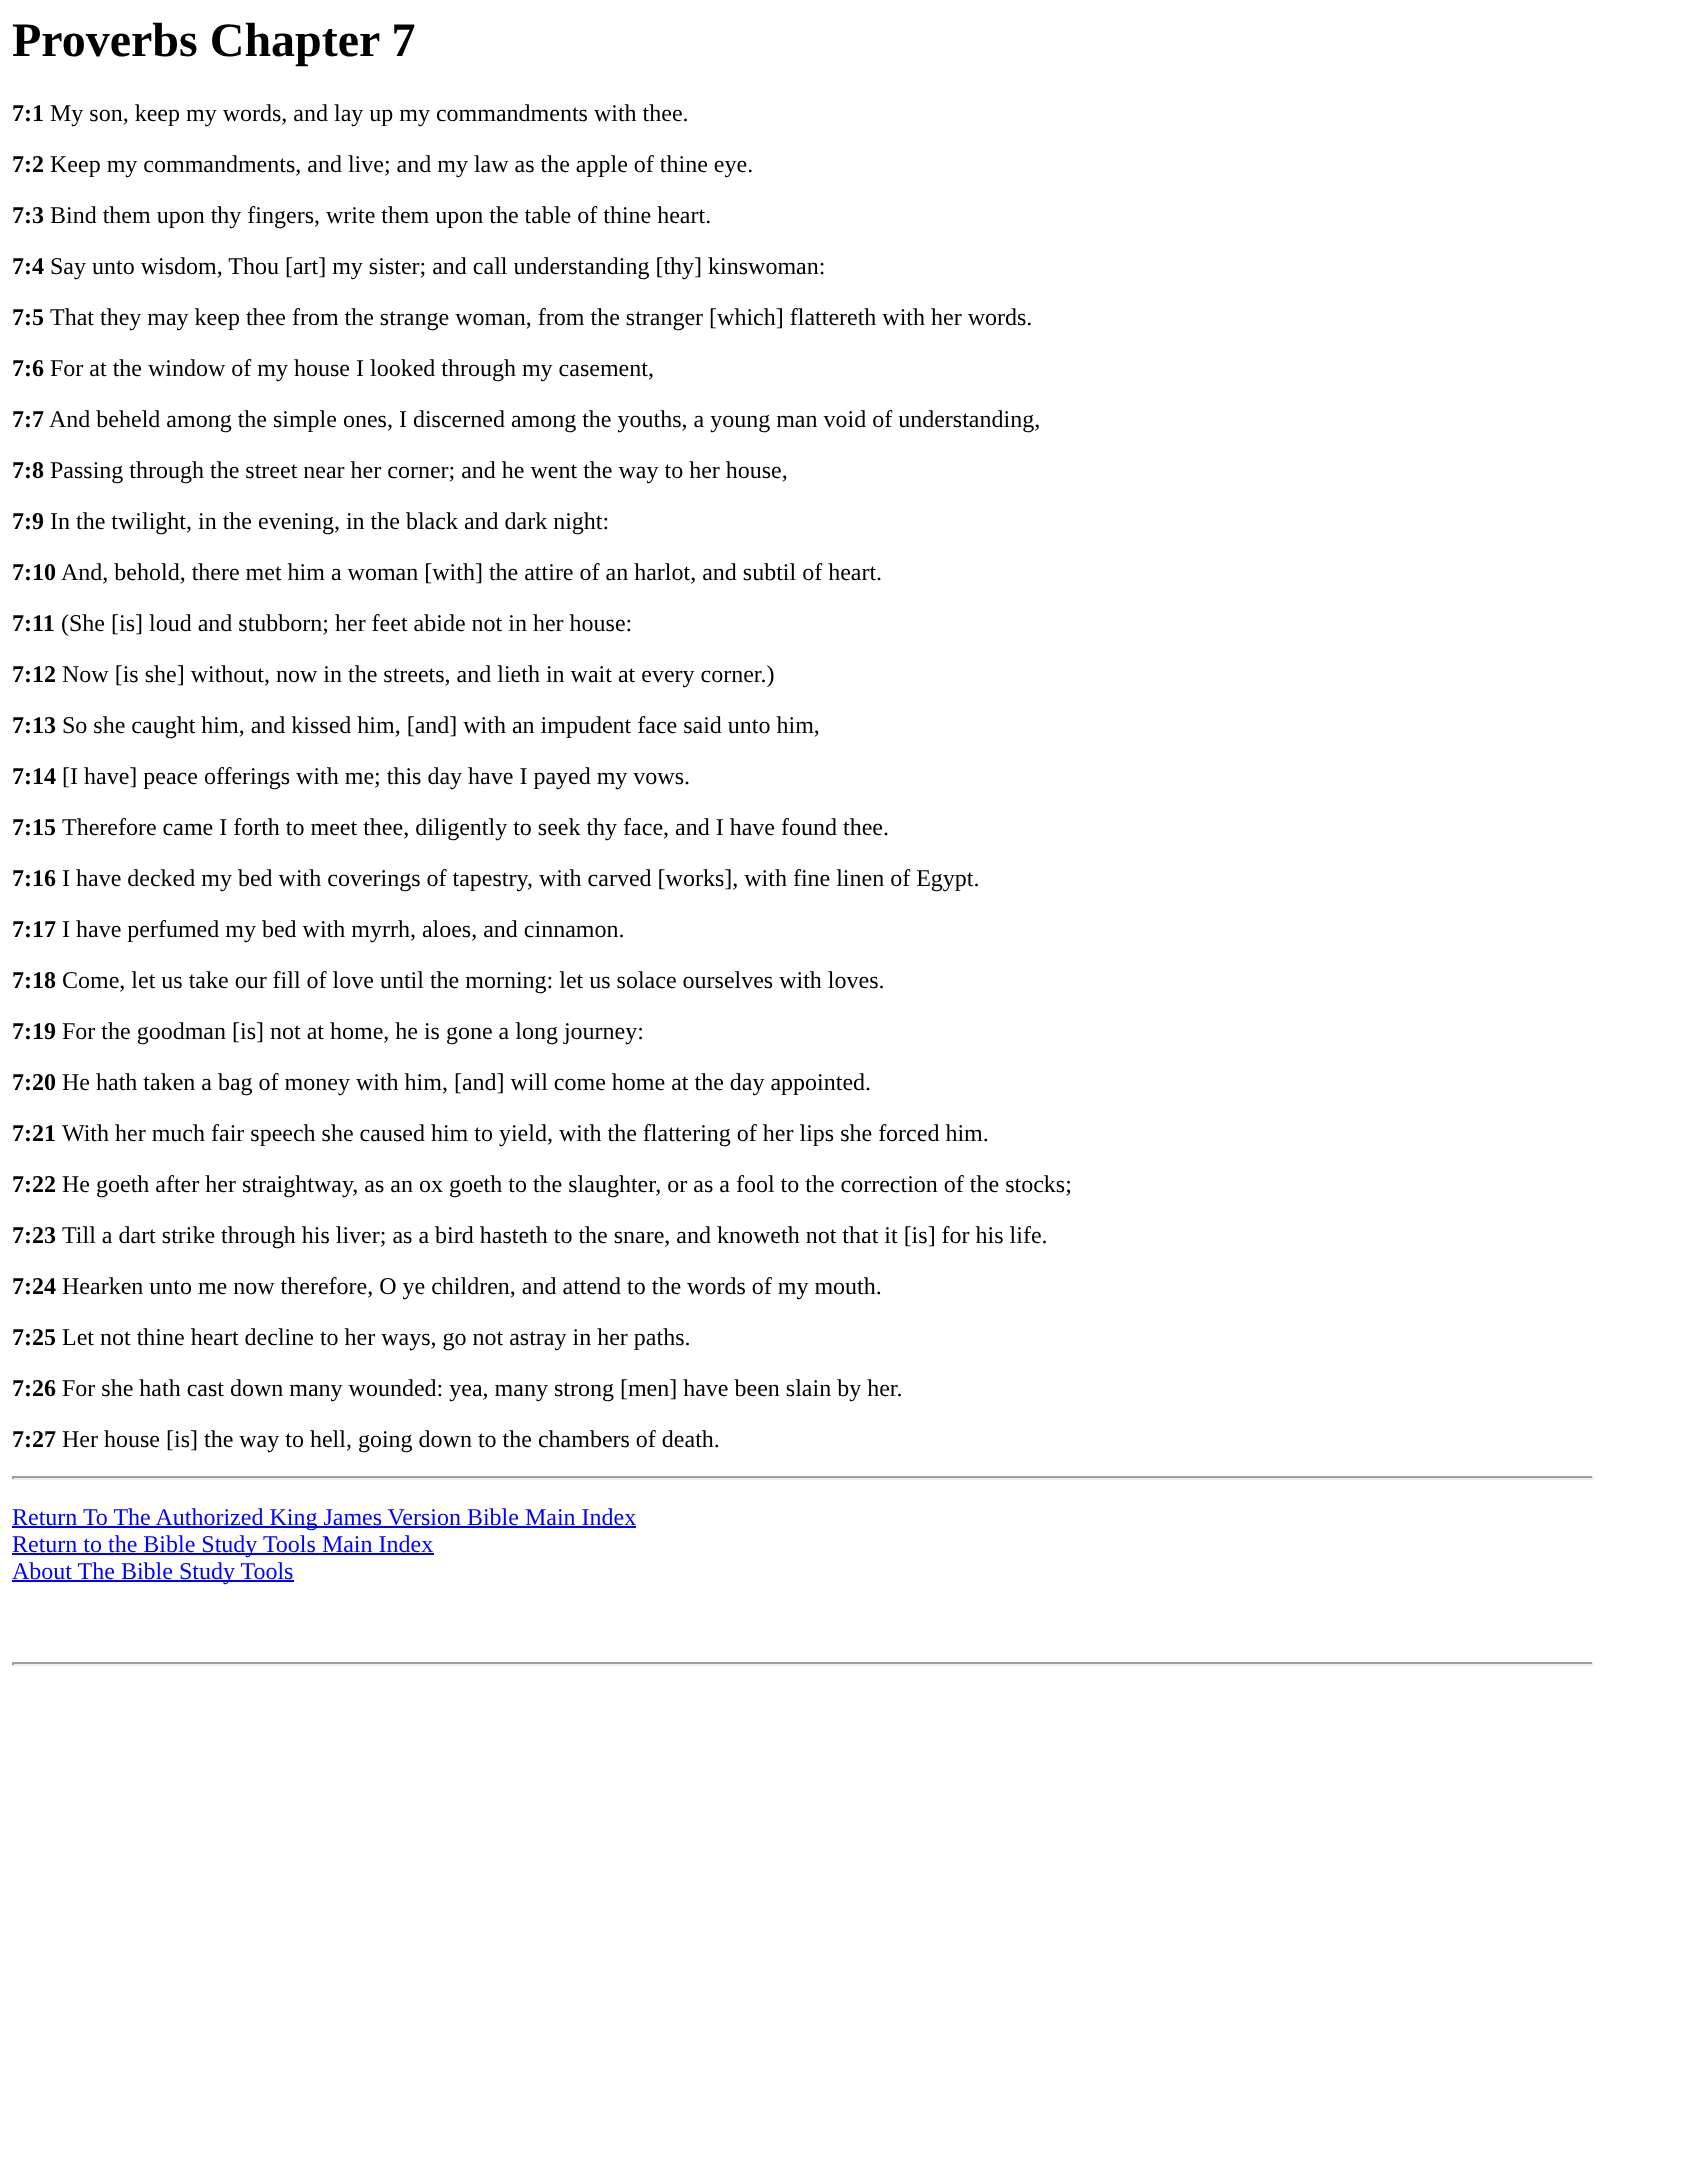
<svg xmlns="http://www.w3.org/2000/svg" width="1684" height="2168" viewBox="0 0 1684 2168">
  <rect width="100%" height="100%" fill="#ffffff"/>
  <text x="12" y="56" font-family="Liberation Serif" font-size="48" font-weight="bold" fill="#000000">Proverbs Chapter 7</text>
  <text x="12" y="121" font-family="Liberation Serif" font-size="24" font-weight="bold" fill="#000000">7:1</text>
  <text x="50" y="121" font-family="Liberation Serif" font-size="24" fill="#000000">My son, keep my words, and lay up my commandments with thee.</text>
  <text x="12" y="172" font-family="Liberation Serif" font-size="24" font-weight="bold" fill="#000000">7:2</text>
  <text x="50" y="172" font-family="Liberation Serif" font-size="24" fill="#000000">Keep my commandments, and live; and my law as the apple of thine eye.</text>
  <text x="12" y="223" font-family="Liberation Serif" font-size="24" font-weight="bold" fill="#000000">7:3</text>
  <text x="50" y="223" font-family="Liberation Serif" font-size="24" fill="#000000">Bind them upon thy fingers, write them upon the table of thine heart.</text>
  <text x="12" y="274" font-family="Liberation Serif" font-size="24" font-weight="bold" fill="#000000">7:4</text>
  <text x="50" y="274" font-family="Liberation Serif" font-size="24" fill="#000000">Say unto wisdom, Thou [art] my sister; and call understanding [thy] kinswoman:</text>
  <text x="12" y="325" font-family="Liberation Serif" font-size="24" font-weight="bold" fill="#000000">7:5</text>
  <text x="50" y="325" font-family="Liberation Serif" font-size="24" fill="#000000">That they may keep thee from the strange woman, from the stranger [which] flattereth with her words.</text>
  <text x="12" y="376" font-family="Liberation Serif" font-size="24" font-weight="bold" fill="#000000">7:6</text>
  <text x="50" y="376" font-family="Liberation Serif" font-size="24" fill="#000000">For at the window of my house I looked through my casement,</text>
  <text x="12" y="427" font-family="Liberation Serif" font-size="24" font-weight="bold" fill="#000000">7:7</text>
  <text x="49" y="427" font-family="Liberation Serif" font-size="24" fill="#000000">And beheld among the simple ones, I discerned among the youths, a young man void of understanding,</text>
  <text x="12" y="478" font-family="Liberation Serif" font-size="24" font-weight="bold" fill="#000000">7:8</text>
  <text x="50" y="478" font-family="Liberation Serif" font-size="24" fill="#000000">Passing through the street near her corner; and he went the way to her house,</text>
  <text x="12" y="529" font-family="Liberation Serif" font-size="24" font-weight="bold" fill="#000000">7:9</text>
  <text x="50" y="529" font-family="Liberation Serif" font-size="24" fill="#000000">In the twilight, in the evening, in the black and dark night:</text>
  <text x="12" y="580" font-family="Liberation Serif" font-size="24" font-weight="bold" fill="#000000">7:10</text>
  <text x="61" y="580" font-family="Liberation Serif" font-size="24" fill="#000000">And, behold, there met him a woman [with] the attire of an harlot, and subtil of heart.</text>
  <text x="12" y="631" font-family="Liberation Serif" font-size="24" font-weight="bold" fill="#000000">7:11</text>
  <text x="61" y="631" font-family="Liberation Serif" font-size="24" fill="#000000">(She [is] loud and stubborn; her feet abide not in her house:</text>
  <text x="12" y="682" font-family="Liberation Serif" font-size="24" font-weight="bold" fill="#000000">7:12</text>
  <text x="62" y="682" font-family="Liberation Serif" font-size="24" fill="#000000">Now [is she] without, now in the streets, and lieth in wait at every corner.)</text>
  <text x="12" y="733" font-family="Liberation Serif" font-size="24" font-weight="bold" fill="#000000">7:13</text>
  <text x="62" y="733" font-family="Liberation Serif" font-size="24" fill="#000000">So she caught him, and kissed him, [and] with an impudent face said unto him,</text>
  <text x="12" y="784" font-family="Liberation Serif" font-size="24" font-weight="bold" fill="#000000">7:14</text>
  <text x="62" y="784" font-family="Liberation Serif" font-size="24" fill="#000000">[I have] peace offerings with me; this day have I payed my vows.</text>
  <text x="12" y="835" font-family="Liberation Serif" font-size="24" font-weight="bold" fill="#000000">7:15</text>
  <text x="62" y="835" font-family="Liberation Serif" font-size="24" fill="#000000">Therefore came I forth to meet thee, diligently to seek thy face, and I have found thee.</text>
  <text x="12" y="886" font-family="Liberation Serif" font-size="24" font-weight="bold" fill="#000000">7:16</text>
  <text x="62" y="886" font-family="Liberation Serif" font-size="24" fill="#000000">I have decked my bed with coverings of tapestry, with carved [works], with fine linen of Egypt.</text>
  <text x="12" y="937" font-family="Liberation Serif" font-size="24" font-weight="bold" fill="#000000">7:17</text>
  <text x="62" y="937" font-family="Liberation Serif" font-size="24" fill="#000000">I have perfumed my bed with myrrh, aloes, and cinnamon.</text>
  <text x="12" y="988" font-family="Liberation Serif" font-size="24" font-weight="bold" fill="#000000">7:18</text>
  <text x="62" y="988" font-family="Liberation Serif" font-size="24" fill="#000000">Come, let us take our fill of love until the morning: let us solace ourselves with loves.</text>
  <text x="12" y="1039" font-family="Liberation Serif" font-size="24" font-weight="bold" fill="#000000">7:19</text>
  <text x="62" y="1039" font-family="Liberation Serif" font-size="24" fill="#000000">For the goodman [is] not at home, he is gone a long journey:</text>
  <text x="12" y="1090" font-family="Liberation Serif" font-size="24" font-weight="bold" fill="#000000">7:20</text>
  <text x="62" y="1090" font-family="Liberation Serif" font-size="24" fill="#000000">He hath taken a bag of money with him, [and] will come home at the day appointed.</text>
  <text x="12" y="1141" font-family="Liberation Serif" font-size="24" font-weight="bold" fill="#000000">7:21</text>
  <text x="62" y="1141" font-family="Liberation Serif" font-size="24" fill="#000000">With her much fair speech she caused him to yield, with the flattering of her lips she forced him.</text>
  <text x="12" y="1192" font-family="Liberation Serif" font-size="24" font-weight="bold" fill="#000000">7:22</text>
  <text x="62" y="1192" font-family="Liberation Serif" font-size="24" fill="#000000">He goeth after her straightway, as an ox goeth to the slaughter, or as a fool to the correction of the stocks;</text>
  <text x="12" y="1243" font-family="Liberation Serif" font-size="24" font-weight="bold" fill="#000000">7:23</text>
  <text x="62" y="1243" font-family="Liberation Serif" font-size="24" fill="#000000">Till a dart strike through his liver; as a bird hasteth to the snare, and knoweth not that it [is] for his life.</text>
  <text x="12" y="1294" font-family="Liberation Serif" font-size="24" font-weight="bold" fill="#000000">7:24</text>
  <text x="62" y="1294" font-family="Liberation Serif" font-size="24" fill="#000000">Hearken unto me now therefore, O ye children, and attend to the words of my mouth.</text>
  <text x="12" y="1345" font-family="Liberation Serif" font-size="24" font-weight="bold" fill="#000000">7:25</text>
  <text x="62" y="1345" font-family="Liberation Serif" font-size="24" fill="#000000">Let not thine heart decline to her ways, go not astray in her paths.</text>
  <text x="12" y="1396" font-family="Liberation Serif" font-size="24" font-weight="bold" fill="#000000">7:26</text>
  <text x="62" y="1396" font-family="Liberation Serif" font-size="24" fill="#000000">For she hath cast down many wounded: yea, many strong [men] have been slain by her.</text>
  <text x="12" y="1447" font-family="Liberation Serif" font-size="24" font-weight="bold" fill="#000000">7:27</text>
  <text x="62" y="1447" font-family="Liberation Serif" font-size="24" fill="#000000">Her house [is] the way to hell, going down to the chambers of death.</text>
  <rect x="12" y="1476" width="1581" height="2" fill="#9f9f9f"/>
  <rect x="1592" y="1476" width="2" height="3" fill="#eeeeee"/>
  <rect x="12" y="1478" width="1581" height="2" fill="#eeeeee"/>
  <rect x="12" y="1476" width="2" height="3" fill="#9f9f9f"/>
  <rect x="12" y="1526" width="624" height="2" fill="#0000ff"/>
  <text x="12" y="1525" font-family="Liberation Serif" font-size="24" fill="#0000ff">Return To The Authorized King James Version Bible Main Index</text>
  <rect x="12" y="1553" width="422" height="2" fill="#0000ff"/>
  <text x="12" y="1552" font-family="Liberation Serif" font-size="24" fill="#0000ff">Return to the Bible Study Tools Main Index</text>
  <rect x="12" y="1580" width="282" height="2" fill="#0000ff"/>
  <text x="12" y="1579" font-family="Liberation Serif" font-size="24" fill="#0000ff">About The Bible Study Tools</text>
  <rect x="12" y="1662" width="1581" height="2" fill="#9f9f9f"/>
  <rect x="1592" y="1662" width="2" height="3" fill="#eeeeee"/>
  <rect x="12" y="1664" width="1581" height="2" fill="#eeeeee"/>
  <rect x="12" y="1662" width="2" height="3" fill="#9f9f9f"/>
</svg>
